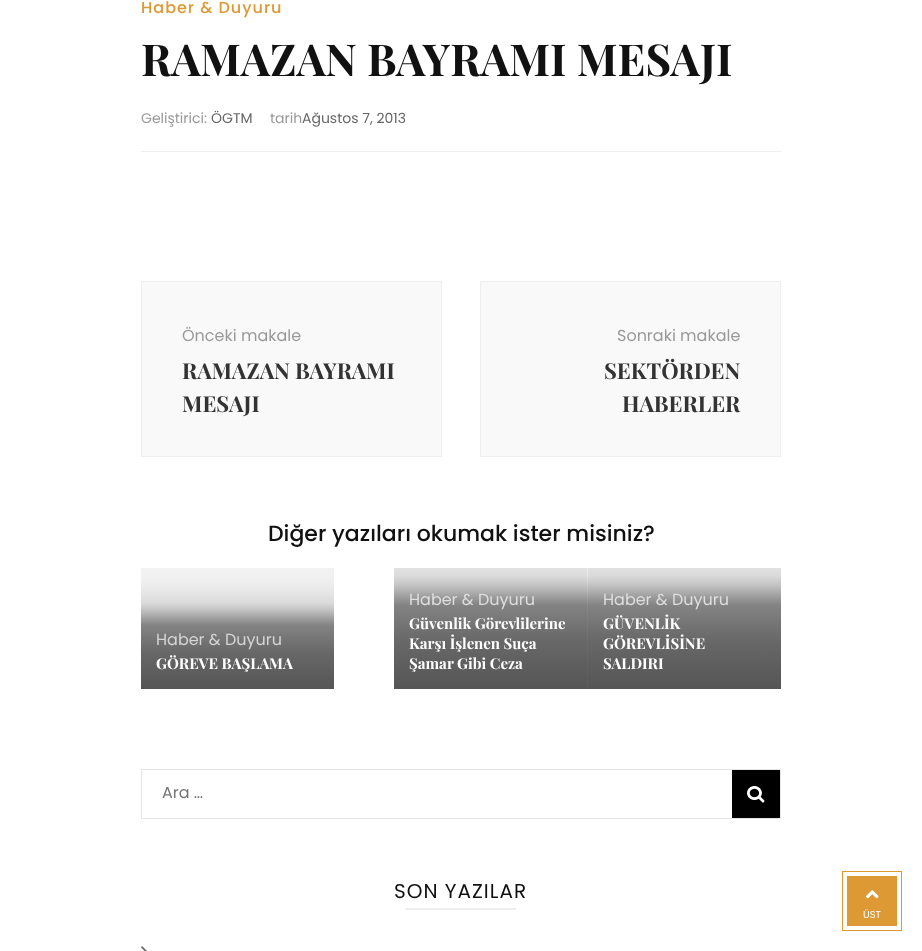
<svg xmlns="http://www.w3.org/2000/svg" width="922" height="951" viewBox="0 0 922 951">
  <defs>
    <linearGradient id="g1" gradientUnits="userSpaceOnUse" x1="238" y1="562" x2="238" y2="689"><stop offset="0" stop-color="#f2f2f2"/><stop offset="0.04" stop-color="#f2f2f2"/><stop offset="0.11" stop-color="#f1f1f1"/><stop offset="0.15" stop-color="#efefef"/><stop offset="0.19" stop-color="#ececec"/><stop offset="0.32" stop-color="#dbdbdb"/><stop offset="0.37" stop-color="#c7c7c7"/><stop offset="0.43" stop-color="#a7a7a7"/><stop offset="0.47" stop-color="#919191"/><stop offset="0.5" stop-color="#838383"/><stop offset="0.71" stop-color="#686868"/><stop offset="1" stop-color="#555555"/></linearGradient>
    <linearGradient id="g2" gradientUnits="userSpaceOnUse" x1="491" y1="522" x2="491" y2="689"><stop offset="0" stop-color="#f5f5f5" stop-opacity="0"/><stop offset="0.04" stop-color="#f5f5f5" stop-opacity="0.02"/><stop offset="0.11" stop-color="#dfdfdf" stop-opacity="0.06"/><stop offset="0.15" stop-color="#cfcfcf" stop-opacity="0.08"/><stop offset="0.19" stop-color="#bfbfbf" stop-opacity="0.11"/><stop offset="0.32" stop-color="#808080" stop-opacity="0.2"/><stop offset="0.37" stop-color="#5a5a5a" stop-opacity="0.28"/><stop offset="0.43" stop-color="#282828" stop-opacity="0.37"/><stop offset="0.47" stop-color="#0b0b0b" stop-opacity="0.42"/><stop offset="0.5" stop-color="#000000" stop-opacity="0.46"/><stop offset="0.71" stop-color="#000000" stop-opacity="0.57"/><stop offset="1" stop-color="#000000" stop-opacity="0.65"/></linearGradient>
    <linearGradient id="g3" gradientUnits="userSpaceOnUse" x1="685" y1="522" x2="685" y2="689"><stop offset="0" stop-color="#f2f2f2"/><stop offset="0.04" stop-color="#f2f2f2"/><stop offset="0.11" stop-color="#f1f1f1"/><stop offset="0.15" stop-color="#efefef"/><stop offset="0.19" stop-color="#ececec"/><stop offset="0.32" stop-color="#dbdbdb"/><stop offset="0.37" stop-color="#c7c7c7"/><stop offset="0.43" stop-color="#a7a7a7"/><stop offset="0.47" stop-color="#919191"/><stop offset="0.5" stop-color="#838383"/><stop offset="0.71" stop-color="#686868"/><stop offset="1" stop-color="#555555"/></linearGradient>
  </defs>
  <rect width="100%" height="100%" fill="#ffffff"/>
  <rect x="141" y="151" width="640" height="1" fill="#eeeeee"/>
  <text x="141" y="13" font-family="Poppins" font-size="16" font-weight="500" letter-spacing="1" fill="#dd9933">Haber &amp; Duyuru</text>
  <text x="141" y="76" font-family="Playfair Display" font-size="44" font-weight="bold" fill="#111111">RAMAZAN BAYRAMI MESAJI</text>
  <text x="141" y="123" font-family="Poppins" font-size="14" fill="#999999">Geliştirici:</text>
  <text x="211" y="123" font-family="Poppins" font-size="14" fill="#666666">ÖGTM</text>
  <text x="270" y="123" font-family="Poppins" font-size="14" fill="#999999">tarih</text>
  <text x="302" y="123" font-family="Poppins" font-size="14" fill="#666666">Ağustos 7, 2013</text>
  <rect x="141.5" y="281.5" width="300" height="175" fill="#f9f9f9" stroke="#eeeeee"/>
  <text x="182" y="341" font-family="Poppins" font-size="16" fill="#999999">Önceki makale</text>
  <text x="182" y="379" font-family="Playfair Display" font-size="22" font-weight="bold" fill="#333333">RAMAZAN BAYRAMI</text>
  <text x="182" y="412" font-family="Playfair Display" font-size="22" font-weight="bold" fill="#333333">MESAJI</text>
  <rect x="480.5" y="281.5" width="300" height="175" fill="#f9f9f9" stroke="#eeeeee"/>
  <text x="617" y="341" font-family="Poppins" font-size="16" fill="#999999">Sonraki makale</text>
  <text x="604" y="379" font-family="Playfair Display" font-size="22" font-weight="bold" fill="#333333">SEKTÖRDEN</text>
  <text x="622" y="412" font-family="Playfair Display" font-size="22" font-weight="bold" fill="#333333">HABERLER</text>
  <text x="268" y="541" font-family="Poppins" font-size="22" font-weight="500" fill="#111111">Diğer yazıları okumak ister misiniz?</text>
  <rect x="141" y="568" width="193" height="121" fill="url(#g1)"/>
  <text x="156" y="645" font-family="Poppins" font-size="16" fill="#d5d5d5">Haber &amp; Duyuru</text>
  <text x="156" y="669" font-family="Playfair Display" font-size="15" font-weight="bold" fill="#ffffff">GÖREVE BAŞLAMA</text>
  <rect x="394" y="568" width="193" height="121" fill="#f2f2f2"/>
  <rect x="394" y="568" width="194" height="121" fill="url(#g2)"/>
  <text x="409" y="605" font-family="Poppins" font-size="16" fill="#dedede">Haber &amp; Duyuru</text>
  <text x="409" y="629" font-family="Playfair Display" font-size="15" font-weight="bold" fill="#ffffff">Güvenlik Görevlilerine</text>
  <text x="409" y="649" font-family="Playfair Display" font-size="15" font-weight="bold" fill="#ffffff">Karşı İşlenen Suça</text>
  <text x="409" y="669" font-family="Playfair Display" font-size="15" font-weight="bold" fill="#ffffff">Şamar Gibi Ceza</text>
  <rect x="588" y="568" width="193" height="121" fill="url(#g3)"/>
  <text x="603" y="605" font-family="Poppins" font-size="16" fill="#dedede">Haber &amp; Duyuru</text>
  <text x="603" y="629" font-family="Playfair Display" font-size="15" font-weight="bold" fill="#ffffff">GÜVENLİK</text>
  <text x="603" y="649" font-family="Playfair Display" font-size="15" font-weight="bold" fill="#ffffff">GÖREVLİSİNE</text>
  <text x="603" y="669" font-family="Playfair Display" font-size="15" font-weight="bold" fill="#ffffff">SALDIRI</text>
  <rect x="141.5" y="769.5" width="639" height="49" fill="none" stroke="#e5e5e5"/>
  <text x="162" y="798" font-family="Poppins" font-size="16" fill="#757575">Ara …</text>
  <rect x="732" y="770" width="48" height="48" fill="#000000"/>
  <image x="747" y="786" width="18" height="17" href="img1.png"/>
  <text x="394" y="898" font-family="Poppins" font-size="20" letter-spacing="1" fill="#111111">SON YAZILAR</text>
  <rect x="406" y="908" width="110" height="2" fill="#eeeeee"/>
  <image x="141" y="946" width="6" height="5" href="img2.png"/>
  <rect x="842" y="871" width="60" height="60" fill="#dd9933"/>
  <image x="866" y="890" width="13" height="9" href="img3.png"/>
  <rect x="845" y="874" width="54" height="54" fill="none" stroke="#ffffff" stroke-width="4"/>
  <text x="863" y="918" font-family="Poppins" font-size="10" fill="#ffffff">ÜST</text>
</svg>
